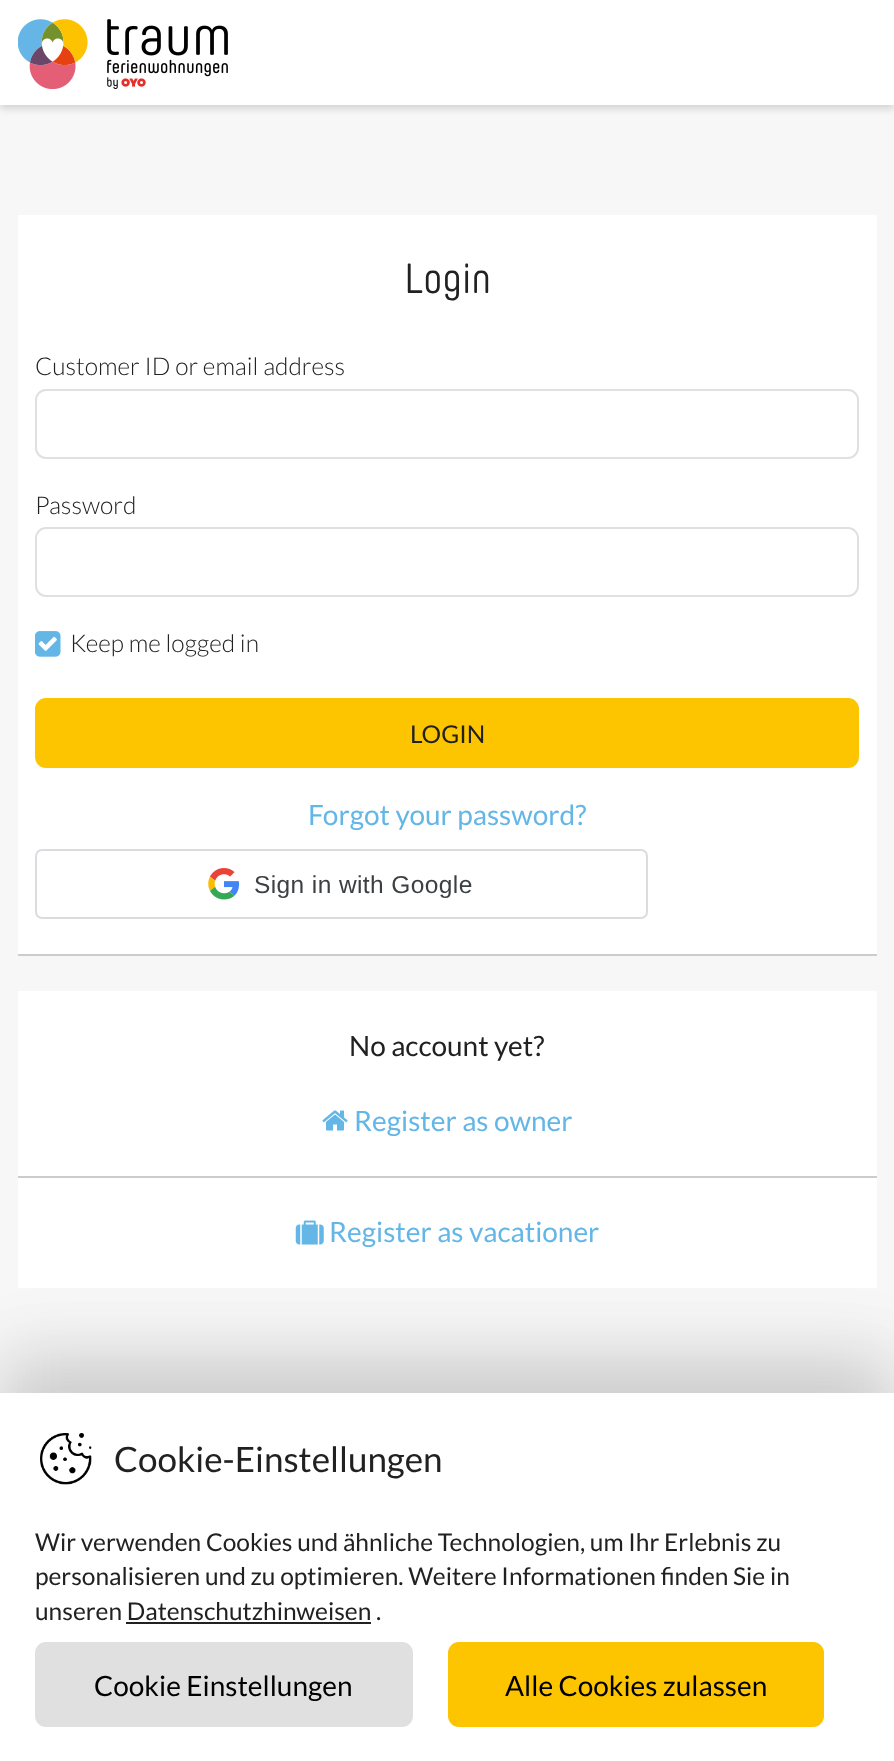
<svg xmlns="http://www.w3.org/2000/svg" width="894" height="1761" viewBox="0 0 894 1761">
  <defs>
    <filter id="blur1" x="-50%" y="-200%" width="200%" height="500%"><feGaussianBlur stdDeviation="3.5"/></filter>
    <filter id="blur2" x="-50%" y="-200%" width="200%" height="500%"><feGaussianBlur stdDeviation="40"/></filter>
    <filter id="blur3" x="-50%" y="-200%" width="200%" height="500%"><feGaussianBlur stdDeviation="33"/></filter>
  </defs>
  <rect width="100%" height="100%" fill="#f7f7f7"/>
  <rect x="0" y="4" width="894" height="105" fill="#000000" fill-opacity="0.14" filter="url(#blur1)"/>
  <rect x="0" y="0" width="894" height="105" fill="#ffffff"/>
  <image x="18" y="19" width="210" height="70" href="img1.png"/>
  <rect x="18" y="215" width="859" height="739" fill="#ffffff"/>
  <text x="404" y="293" font-family="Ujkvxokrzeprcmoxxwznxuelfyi" font-size="42" fill="#212121">Login</text>
  <rect x="18" y="954" width="859" height="2" fill="#cccccc"/>
  <text x="35" y="375" font-family="Lato" font-size="24.5" font-weight="300" fill="#212121">Customer ID or email address</text>
  <rect x="36" y="390" width="822" height="68" rx="10" fill="none" stroke="#e0e0e0" stroke-width="2"/>
  <text x="35" y="514" font-family="Lato" font-size="24.5" font-weight="300" fill="#212121">Password</text>
  <rect x="36" y="528" width="822" height="68" rx="10" fill="none" stroke="#e0e0e0" stroke-width="2"/>
  <image x="35" y="631" width="24" height="26" href="img2.png"/>
  <image x="35" y="631" width="26" height="26" href="img3.png"/>
  <text x="70" y="652" font-family="Lato" font-size="24.5" font-weight="300" fill="#212121">Keep me logged in</text>
  <rect x="36" y="699" width="822" height="68" rx="10" fill="#fdc400" stroke="#fdc400" stroke-width="2"/>
  <text x="410" y="743" font-family="Lato" font-size="24.5" fill="#212121">LOGIN</text>
  <text x="308" y="825" font-family="Lato" font-size="28" fill="#64b6e7">Forgot your password?</text>
  <rect x="36" y="850" width="611" height="68" rx="6" fill="none" stroke="#dadce0" stroke-width="2"/>
  <image x="208" y="868" width="32" height="32" href="img4.png"/>
  <text x="254" y="893" font-family="Liberation Sans" font-size="24.5" letter-spacing="0.4" fill="#3c4043">Sign in with Google</text>
  <rect x="18" y="991" width="859" height="297" fill="#ffffff"/>
  <text x="349" y="1056" font-family="Lato" font-size="28" fill="#212121">No account yet?</text>
  <rect x="18" y="1176" width="859" height="2" fill="#cccccc"/>
  <image x="322" y="1110" width="26" height="21" href="img5.png"/>
  <text x="354" y="1131" font-family="Lato" font-size="28" fill="#64b6e7">Register as owner</text>
  <image x="295" y="1220" width="29" height="25" href="img6.png"/>
  <text x="329" y="1242" font-family="Lato" font-size="28" fill="#64b6e7">Register as vacationer</text>
  <rect x="0" y="1377" width="894" height="370" fill="#000000" fill-opacity="0.1" filter="url(#blur2)"/>
  <rect x="0" y="1351" width="894" height="369" fill="#000000" fill-opacity="0.1" filter="url(#blur3)"/>
  <rect x="0" y="1393" width="894" height="368" fill="#ffffff"/>
  <image x="40" y="1433" width="52" height="52" href="img7.png"/>
  <text x="114" y="1472" font-family="Lato" font-size="35" fill="#212121">Cookie-Einstellungen</text>
  <text x="35" y="1551" font-family="Lato" font-size="24.5" fill="#212121">Wir verwenden Cookies und ähnliche Technologien, um Ihr Erlebnis zu</text>
  <text x="35" y="1585" font-family="Lato" font-size="24.5" fill="#212121">personalisieren und zu optimieren. Weitere Informationen finden Sie in</text>
  <text x="35" y="1620" font-family="Lato" font-size="24.5" fill="#212121">unseren Datenschutzhinweisen .</text>
  <rect x="126" y="1622" width="245" height="2" fill="#212121"/>
  <rect x="35" y="1642" width="378" height="85" rx="11" fill="#e0e0e0"/>
  <text x="94" y="1696" font-family="Lato" font-size="28" fill="#000000">Cookie Einstellungen</text>
  <rect x="448" y="1642" width="376" height="85" rx="11" fill="#fdc400"/>
  <text x="505" y="1696" font-family="Lato" font-size="28" fill="#000000">Alle Cookies zulassen</text>
</svg>
